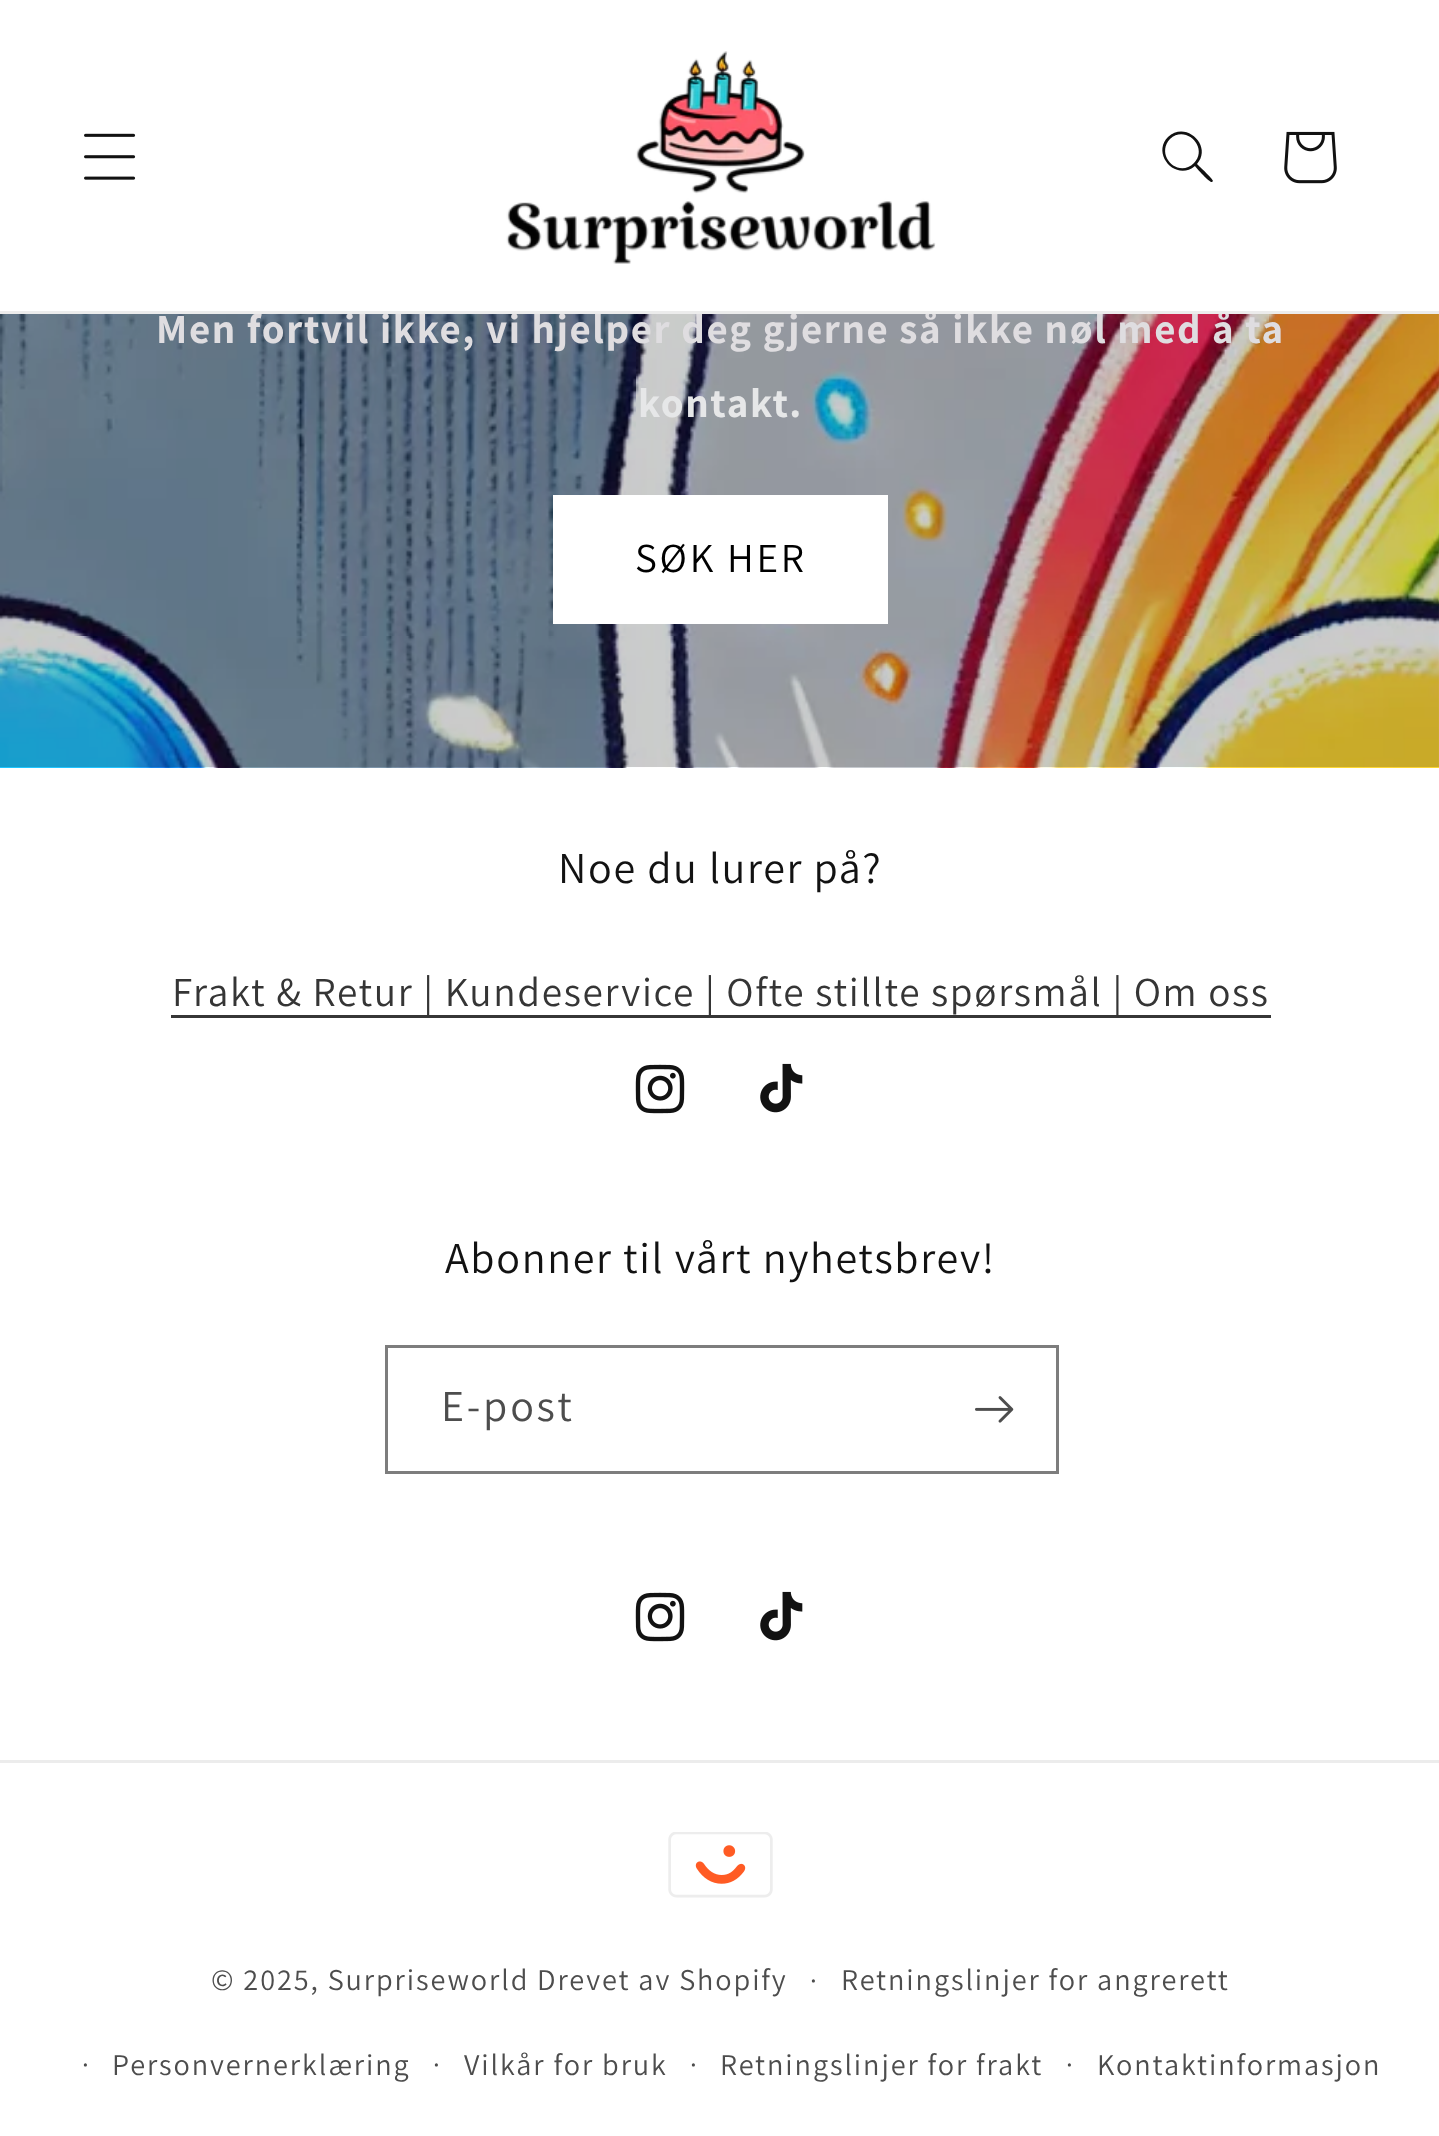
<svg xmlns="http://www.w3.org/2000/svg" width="1439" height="2136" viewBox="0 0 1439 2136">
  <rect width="100%" height="100%" fill="#ffffff"/>
  <image x="0" y="314" width="1439" height="454" href="img4.png"/>
  <text x="156" y="343" font-family="Assistant" font-size="41.25" font-weight="bold" letter-spacing="1.65" fill="#dfdde0">Men fortvil ikke, vi hjelper deg gjerne så ikke nøl med å ta</text>
  <rect x="0" y="311" width="1439" height="3" fill="#ececec"/>
  <image x="84" y="133" width="52" height="47" href="img1.png"/>
  <image x="506" y="51" width="430" height="213" href="img2.png"/>
  <path d="M1194 163C1178 179 1155 155 1170 139C1186 124 1209 148 1194 163ZM1195 166C1176 182 1151 154 1168 137C1186 120 1213 146 1197 164C1199 166 1213 179 1213 181L1212 182C1210 183 1197 169 1195 166Z" fill="#121212" fill-rule="evenodd"/>
  <image x="1284" y="131" width="53" height="53" href="img3.png"/>
  <text x="638" y="417" font-family="Assistant" font-size="41.25" font-weight="bold" letter-spacing="1.65" fill="#e6e7e8">kontakt.</text>
  <rect x="553" y="495" width="335" height="129" fill="#ffffff"/>
  <text x="635" y="572" font-family="Assistant" font-size="41.25" letter-spacing="2.75" fill="#000000">SØK HER</text>
  <text x="558" y="883" font-family="Assistant" font-size="44" letter-spacing="1.65" fill="#121212">Noe du lurer på?</text>
  <rect x="171" y="1015" width="1100" height="3" fill="#363636"/>
  <text x="172" y="1006" font-family="Assistant" font-size="41.25" letter-spacing="1.65" fill="#353535">Frakt &amp; Retur | Kundeservice | Ofte stillte spørsmål | Om oss</text>
  <image x="635" y="1064" width="50" height="50" href="img5.png"/>
  <image x="760" y="1063" width="43" height="50" href="img6.png"/>
  <text x="445" y="1273" font-family="Assistant" font-size="44" letter-spacing="1.65" fill="#121212">Abonner til vårt nyhetsbrev!</text>
  <rect x="386.5" y="1346.5" width="671" height="126" fill="none" stroke="#7d7d7d" stroke-width="3"/>
  <text x="441" y="1421" font-family="Assistant" font-size="44" letter-spacing="2.75" fill="#4d4d4d">E-post</text>
  <image x="975" y="1396" width="39" height="27" href="img7.png"/>
  <image x="635" y="1592" width="50" height="50" href="img5.png"/>
  <image x="760" y="1591" width="43" height="50" href="img6.png"/>
  <rect x="0" y="1760" width="1439" height="3" fill="#ececec"/>
  <image x="668" y="1832" width="105" height="66" href="img8.png"/>
  <text x="810" y="1990" font-family="Assistant" font-size="28" letter-spacing="1.9" fill="#4d4d4d">·</text>
  <text x="841" y="1990" font-family="Assistant" font-size="30.25" letter-spacing="1.9" fill="#4d4d4d">Retningslinjer for angrerett</text>
  <text x="82" y="2074" font-family="Assistant" font-size="28" letter-spacing="1.9" fill="#4d4d4d">·</text>
  <text x="112" y="2075" font-family="Assistant" font-size="30.25" letter-spacing="1.9" fill="#4d4d4d">Personvernerklæring</text>
  <text x="433" y="2074" font-family="Assistant" font-size="28" letter-spacing="1.9" fill="#4d4d4d">·</text>
  <text x="464" y="2075" font-family="Assistant" font-size="30.25" letter-spacing="1.9" fill="#4d4d4d">Vilkår for bruk</text>
  <text x="690" y="2074" font-family="Assistant" font-size="28" letter-spacing="1.9" fill="#4d4d4d">·</text>
  <text x="720" y="2075" font-family="Assistant" font-size="30.25" letter-spacing="1.9" fill="#4d4d4d">Retningslinjer for frakt</text>
  <text x="1066" y="2074" font-family="Assistant" font-size="28" letter-spacing="1.9" fill="#4d4d4d">·</text>
  <text x="1097" y="2075" font-family="Assistant" font-size="30.25" letter-spacing="1.9" fill="#4d4d4d">Kontaktinformasjon</text>
  <text x="211" y="1990" font-family="Assistant" font-size="30.25" letter-spacing="1.9" fill="#4d4d4d">© 2025, Surpriseworld</text>
  <text x="537" y="1990" font-family="Assistant" font-size="30.25" letter-spacing="1.9" fill="#4d4d4d">Drevet av Shopify</text>
</svg>
